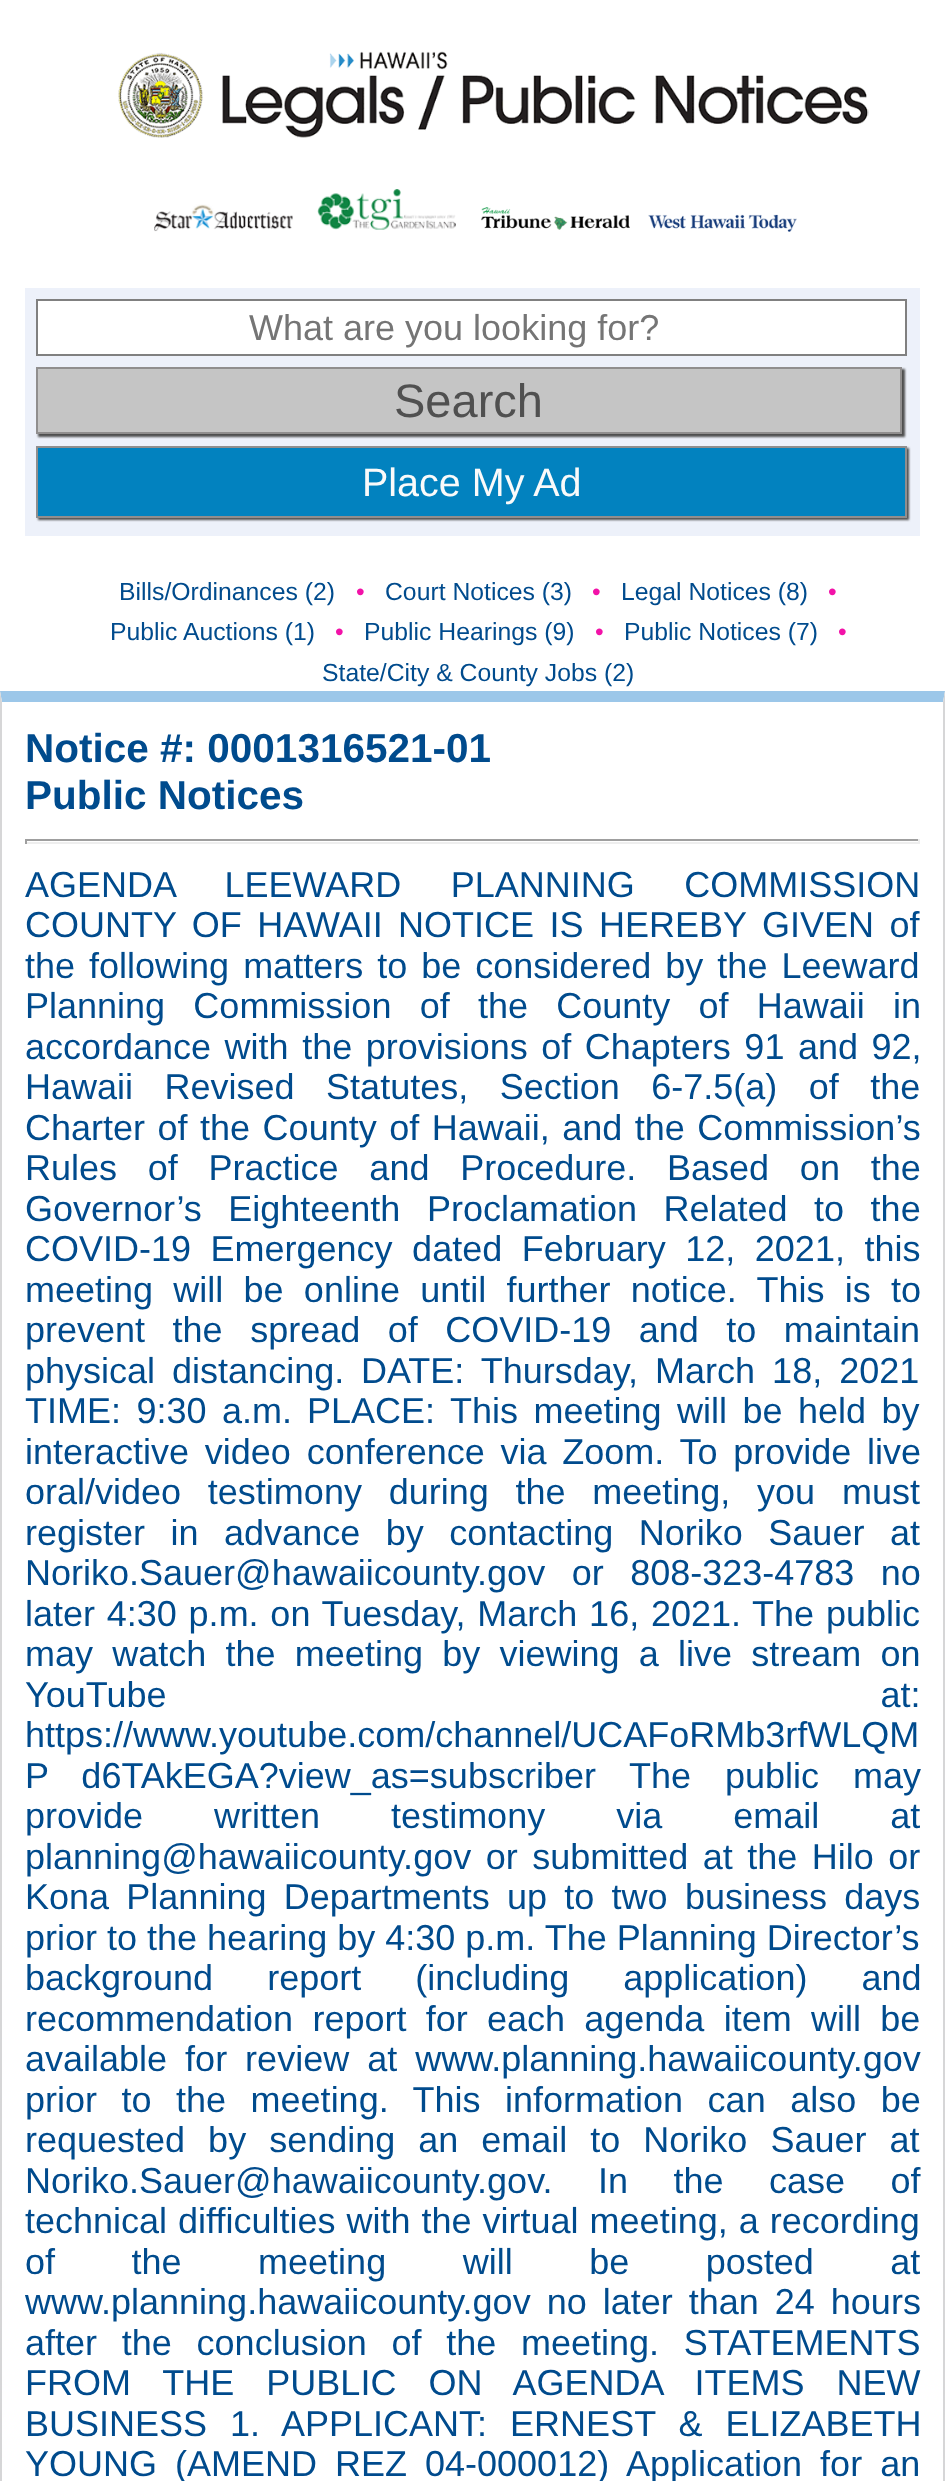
<svg xmlns="http://www.w3.org/2000/svg" width="945" height="2481" viewBox="0 0 945 2481">
  <defs>
    <filter id="blur1" x="-50%" y="-200%" width="200%" height="500%"><feGaussianBlur stdDeviation="1"/></filter>
  </defs>
  <rect width="100%" height="100%" fill="#ffffff"/>
  <image x="118" y="51" width="751" height="87" href="img1.png"/>
  <image x="154" y="204" width="139" height="28" href="img2.png"/>
  <image x="317" y="189" width="139" height="41" href="img3.png"/>
  <image x="481" y="207" width="149" height="23" href="img4.png"/>
  <image x="648" y="214" width="149" height="18" href="img5.png"/>
  <rect x="25" y="288" width="895" height="248" fill="#edf1fa"/>
  <rect x="37" y="300" width="869" height="55" fill="#ffffff" stroke="#808080" stroke-width="2"/>
  <text x="249" y="340" font-family="Liberation Sans" font-size="36" fill="#757575">What are you looking for?</text>
  <rect x="38" y="369" width="867" height="68" fill="#505050" filter="url(#blur1)"/>
  <rect x="37" y="368" width="864" height="65" fill="#c5c5c5" stroke="#908e8e" stroke-width="2"/>
  <text x="394" y="417" font-family="Liberation Sans" font-size="47" fill="#505050">Search</text>
  <rect x="38" y="448" width="871" height="72" fill="#505050" filter="url(#blur1)"/>
  <rect x="37" y="447" width="869" height="70" fill="#0282bf" stroke="#908e8e" stroke-width="2"/>
  <text x="362" y="496" font-family="Liberation Sans" font-size="39.5" fill="#fafafa">Place My Ad</text>
  <text x="119" y="600" font-family="Liberation Sans" font-size="24.75" fill="#004b8d">Bills/Ordinances (2)</text>
  <text x="356" y="600" font-family="Liberation Sans" font-size="24.75" fill="#f212a8">•</text>
  <text x="385" y="600" font-family="Liberation Sans" font-size="24.75" fill="#004b8d">Court Notices (3)</text>
  <text x="592" y="600" font-family="Liberation Sans" font-size="24.75" fill="#f212a8">•</text>
  <text x="621" y="600" font-family="Liberation Sans" font-size="24.75" fill="#004b8d">Legal Notices (8)</text>
  <text x="828" y="600" font-family="Liberation Sans" font-size="24.75" fill="#f212a8">•</text>
  <text x="110" y="640" font-family="Liberation Sans" font-size="24.75" fill="#004b8d">Public Auctions (1)</text>
  <text x="335" y="640" font-family="Liberation Sans" font-size="24.75" fill="#f212a8">•</text>
  <text x="364" y="640" font-family="Liberation Sans" font-size="24.75" fill="#004b8d">Public Hearings (9)</text>
  <text x="595" y="640" font-family="Liberation Sans" font-size="24.75" fill="#f212a8">•</text>
  <text x="624" y="640" font-family="Liberation Sans" font-size="24.75" fill="#004b8d">Public Notices (7)</text>
  <text x="838" y="640" font-family="Liberation Sans" font-size="24.75" fill="#f212a8">•</text>
  <text x="322" y="681" font-family="Liberation Sans" font-size="24.75" fill="#004b8d">State/City &amp; County Jobs (2)</text>
  <path d="M0 691H945L943 702H2Z" fill="#9cc7e9"/>
  <path d="M945 691V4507L943 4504V702Z" fill="#d6d6d7"/>
  <path d="M0 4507V691L2 702V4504Z" fill="#d6d6d7"/>
  <text x="25" y="762" font-family="Liberation Sans" font-size="40.5" font-weight="bold" fill="#004b8d">Notice #: 0001316521-01</text>
  <text x="25" y="809" font-family="Liberation Sans" font-size="40.5" font-weight="bold" fill="#004b8d">Public Notices</text>
  <rect x="25" y="839" width="895" height="2" fill="#9f9f9f"/>
  <rect x="918" y="839" width="2" height="5" fill="#eeeeee"/>
  <rect x="25" y="842" width="895" height="2" fill="#eeeeee"/>
  <rect x="25" y="839" width="2" height="5" fill="#9f9f9f"/>
  <text x="25" y="897" word-spacing="39.5" font-family="Liberation Sans" font-size="36" fill="#004b8d">AGENDA LEEWARD PLANNING COMMISSION</text>
  <text x="25" y="937" word-spacing="5.5" font-family="Liberation Sans" font-size="36" fill="#004b8d">COUNTY OF HAWAII</text>
  <text x="398" y="937" word-spacing="5.5" font-family="Liberation Sans" font-size="36" fill="#004b8d">NOTICE IS HEREBY GIVEN of</text>
  <text x="25" y="978" word-spacing="4" font-family="Liberation Sans" font-size="36" fill="#004b8d">the following matters to be considered by the Leeward</text>
  <text x="25" y="1018" word-spacing="18.25" font-family="Liberation Sans" font-size="36" fill="#004b8d">Planning Commission of the County of Hawaii in</text>
  <text x="25" y="1059" word-spacing="3.5" font-family="Liberation Sans" font-size="36" fill="#004b8d">accordance with the provisions of Chapters 91 and 92,</text>
  <text x="25" y="1099" word-spacing="21.5" font-family="Liberation Sans" font-size="36" fill="#004b8d">Hawaii Revised Statutes, Section 6-7.5(a) of the</text>
  <text x="25" y="1140" word-spacing="2.5" font-family="Liberation Sans" font-size="36" fill="#004b8d">Charter of the County of Hawaii, and the Commission’s</text>
  <text x="25" y="1180" word-spacing="20.75" font-family="Liberation Sans" font-size="36" fill="#004b8d">Rules of Practice and Procedure. Based on the</text>
  <text x="25" y="1221" word-spacing="16.5" font-family="Liberation Sans" font-size="36" fill="#004b8d">Governor’s Eighteenth Proclamation Related to the</text>
  <text x="25" y="1261" word-spacing="9.5" font-family="Liberation Sans" font-size="36" fill="#004b8d">COVID-19 Emergency dated February 12, 2021, this</text>
  <text x="25" y="1302" word-spacing="10.25" font-family="Liberation Sans" font-size="36" fill="#004b8d">meeting will be online until further notice. This is to</text>
  <text x="25" y="1342" word-spacing="17.5" font-family="Liberation Sans" font-size="36" fill="#004b8d">prevent the spread of COVID-19 and to maintain</text>
  <text x="25" y="1383" word-spacing="7" font-family="Liberation Sans" font-size="36" fill="#004b8d">physical distancing.</text>
  <text x="361" y="1383" word-spacing="7" font-family="Liberation Sans" font-size="36" fill="#004b8d">DATE: Thursday, March 18, 2021</text>
  <text x="25" y="1423" word-spacing="5.5" font-family="Liberation Sans" font-size="36" fill="#004b8d">TIME: 9:30 a.m.</text>
  <text x="307" y="1423" word-spacing="5.5" font-family="Liberation Sans" font-size="36" fill="#004b8d">PLACE: This meeting will be held by</text>
  <text x="25" y="1464" word-spacing="5.75" font-family="Liberation Sans" font-size="36" fill="#004b8d">interactive video conference via Zoom. To provide live</text>
  <text x="25" y="1504" word-spacing="16.75" font-family="Liberation Sans" font-size="36" fill="#004b8d">oral/video testimony during the meeting, you must</text>
  <text x="25" y="1545" word-spacing="15.5" font-family="Liberation Sans" font-size="36" fill="#004b8d">register in advance by contacting Noriko Sauer at</text>
  <text x="25" y="1585" word-spacing="16.5" font-family="Liberation Sans" font-size="36" fill="#004b8d">Noriko.Sauer@hawaiicounty.gov or 808-323-4783 no</text>
  <text x="25" y="1626" word-spacing="1.75" font-family="Liberation Sans" font-size="36" fill="#004b8d">later 4:30 p.m. on Tuesday, March 16, 2021.</text>
  <text x="752" y="1626" word-spacing="2" font-family="Liberation Sans" font-size="36" fill="#004b8d">The public</text>
  <text x="25" y="1666" word-spacing="9.25" font-family="Liberation Sans" font-size="36" fill="#004b8d">may watch the meeting by viewing a live stream on</text>
  <text x="25" y="1707" word-spacing="704" font-family="Liberation Sans" font-size="36" fill="#004b8d">YouTube at:</text>
  <text x="25" y="1747" font-family="Liberation Sans" font-size="36" fill="#004b8d">https://www.youtube.com/channel/UCAFoRMb3rfWLQM</text>
  <text x="25" y="1788" word-spacing="23" font-family="Liberation Sans" font-size="36" fill="#004b8d">P d6TAkEGA?view_as=subscriber</text>
  <text x="629" y="1788" word-spacing="24" font-family="Liberation Sans" font-size="36" fill="#004b8d">The public may</text>
  <text x="25" y="1828" word-spacing="61" font-family="Liberation Sans" font-size="36" fill="#004b8d">provide written testimony via email at</text>
  <text x="25" y="1869" word-spacing="4.5" font-family="Liberation Sans" font-size="36" fill="#004b8d">planning@hawaiicounty.gov or submitted at the Hilo or</text>
  <text x="25" y="1909" word-spacing="7.25" font-family="Liberation Sans" font-size="36" fill="#004b8d">Kona Planning Departments up to two business days</text>
  <text x="25" y="1950" font-family="Liberation Sans" font-size="36" fill="#004b8d">prior to the hearing by 4:30 p.m. The Planning Director’s</text>
  <text x="25" y="1990" word-spacing="44" font-family="Liberation Sans" font-size="36" fill="#004b8d">background report (including application) and</text>
  <text x="25" y="2031" word-spacing="9.25" font-family="Liberation Sans" font-size="36" fill="#004b8d">recommendation report for each agenda item will be</text>
  <text x="25" y="2071" word-spacing="8" font-family="Liberation Sans" font-size="36" fill="#004b8d">available for review at www.planning.hawaiicounty.gov</text>
  <text x="25" y="2112" word-spacing="14.5" font-family="Liberation Sans" font-size="36" fill="#004b8d">prior to the meeting. This information can also be</text>
  <text x="25" y="2152" word-spacing="13" font-family="Liberation Sans" font-size="36" fill="#004b8d">requested by sending an email to Noriko Sauer at</text>
  <text x="25" y="2193" word-spacing="35.5" font-family="Liberation Sans" font-size="36" fill="#004b8d">Noriko.Sauer@hawaiicounty.gov. In the case of</text>
  <text x="25" y="2233" word-spacing="1" font-family="Liberation Sans" font-size="36" fill="#004b8d">technical difficulties with the virtual meeting, a recording</text>
  <text x="25" y="2274" word-spacing="66.5" font-family="Liberation Sans" font-size="36" fill="#004b8d">of the meeting will be posted at</text>
  <text x="25" y="2314" word-spacing="6" font-family="Liberation Sans" font-size="36" fill="#004b8d">www.planning.hawaiicounty.gov no later than 24 hours</text>
  <text x="25" y="2355" word-spacing="14.75" font-family="Liberation Sans" font-size="36" fill="#004b8d">after the conclusion of the meeting. STATEMENTS</text>
  <text x="25" y="2395" word-spacing="22" font-family="Liberation Sans" font-size="36" fill="#004b8d">FROM THE PUBLIC ON AGENDA ITEMS NEW</text>
  <text x="25" y="2436" font-family="Liberation Sans" font-size="36" fill="#004b8d">BUSINESS</text>
  <text x="230" y="2436" word-spacing="13" font-family="Liberation Sans" font-size="36" fill="#004b8d">1. APPLICANT: ERNEST &amp; ELIZABETH</text>
  <text x="25" y="2476" word-spacing="8" font-family="Liberation Sans" font-size="36" fill="#004b8d">YOUNG (AMEND REZ 04-000012)</text>
  <text x="626" y="2476" word-spacing="8" font-family="Liberation Sans" font-size="36" fill="#004b8d">Application for an</text>
</svg>
